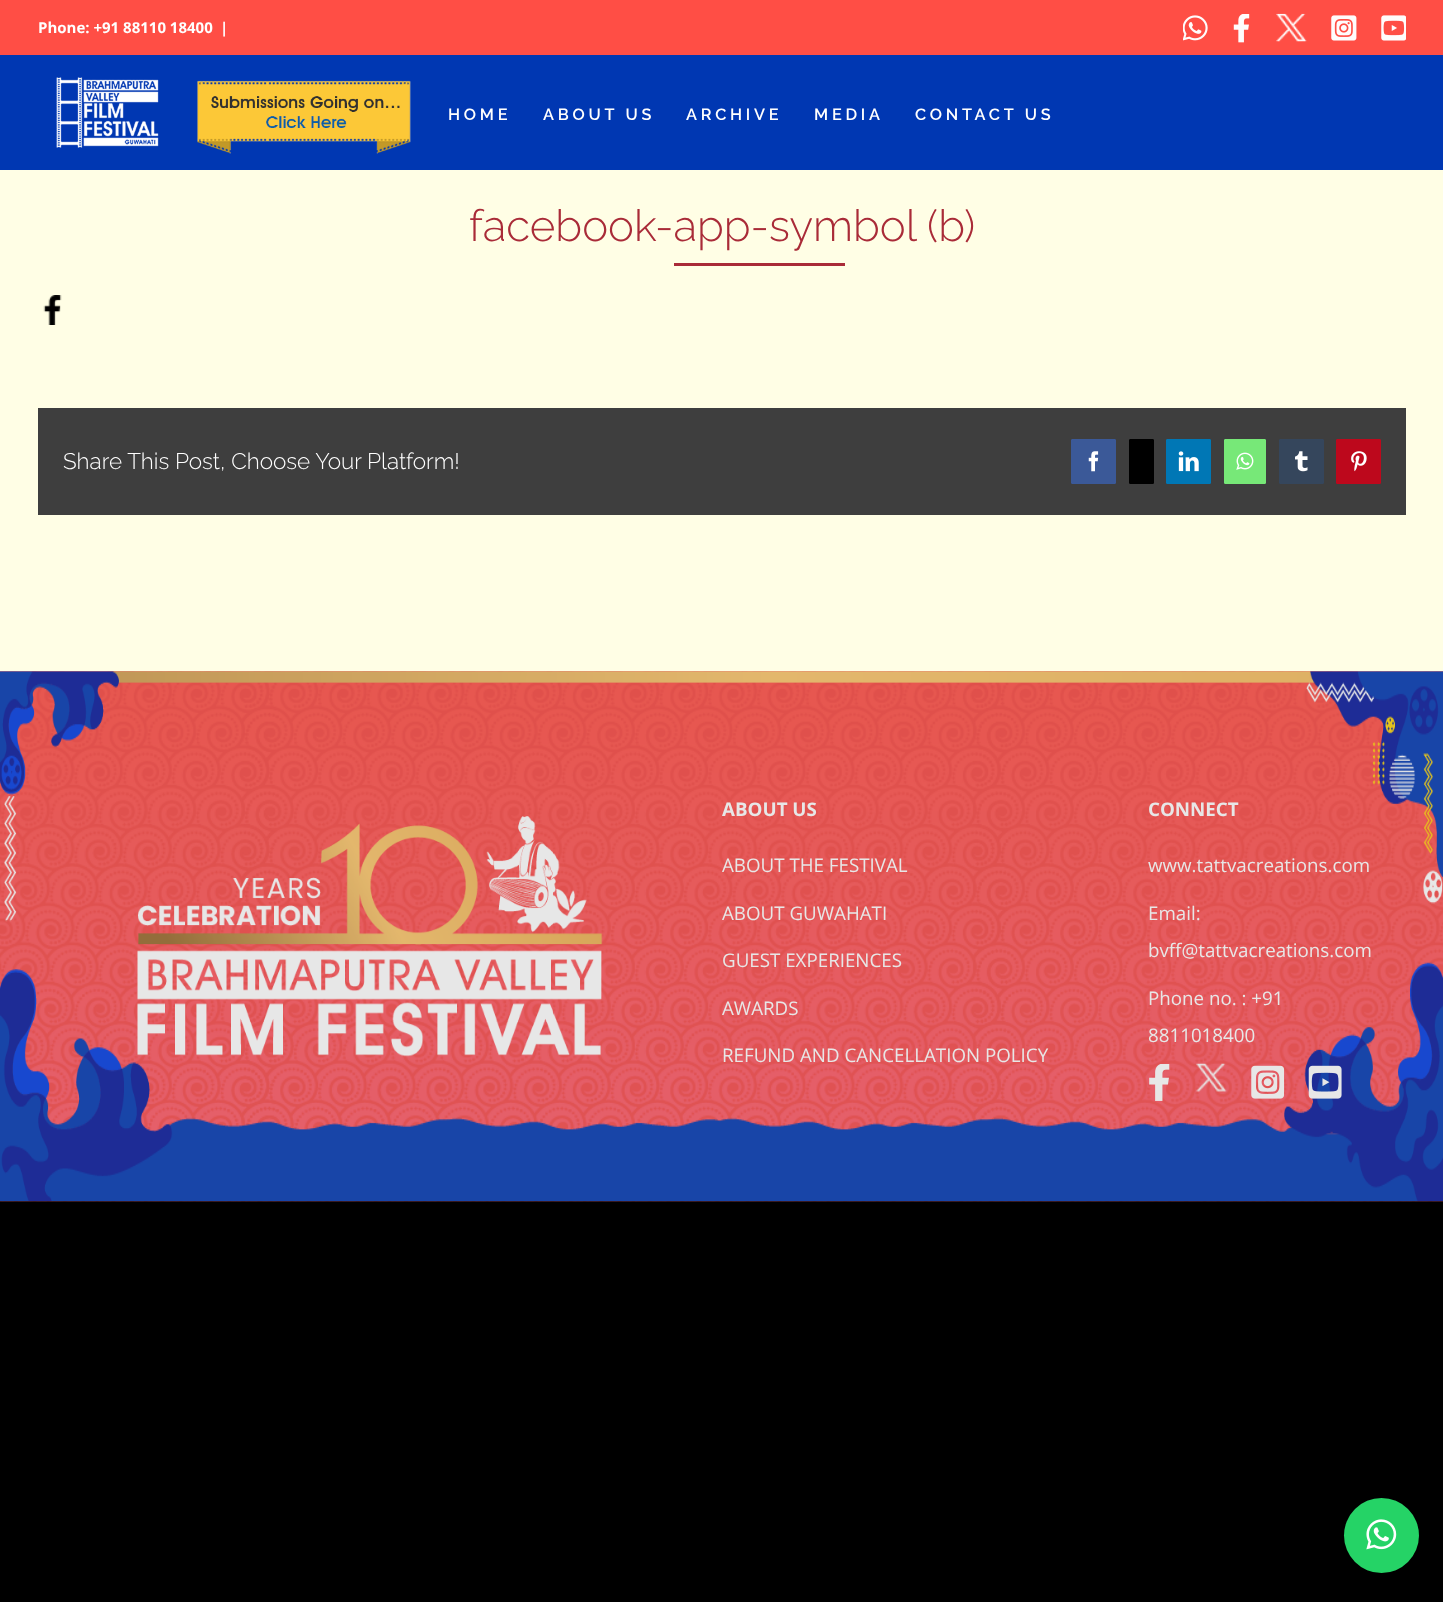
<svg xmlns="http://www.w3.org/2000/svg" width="1443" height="1602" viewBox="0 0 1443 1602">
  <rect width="100%" height="100%" fill="#000000"/>
  <rect x="0" y="170" width="1443" height="502" fill="#fffee5"/>
  <rect x="0" y="0" width="1443" height="55" fill="#ff4e45"/>
  <text x="38" y="33" font-family="Open Sans" font-size="15" font-weight="bold" fill="#ffffff">Phone: +91 88110 18400</text>
  <text x="220" y="33" font-family="Open Sans" font-size="15" font-weight="bold" fill="#ffffff">|</text>
  <image x="1183" y="15" width="25" height="26" href="img1.png"/>
  <image x="1233" y="14" width="17" height="29" href="img2.png"/>
  <image x="1276" y="13" width="31" height="29" href="img3.png"/>
  <image x="1331" y="15" width="26" height="26" href="img4.png"/>
  <image x="1381" y="15" width="25" height="26" href="img5.png"/>
  <rect x="0" y="55" width="1443" height="115" fill="#0037b2"/>
  <image x="56" y="77" width="355" height="77" href="img6.png"/>
  <text x="448" y="120" font-family="Raleway" font-size="16.25" font-weight="600" letter-spacing="3.75" fill="#ffffff">HOME</text>
  <text x="543" y="120" font-family="Raleway" font-size="16.25" font-weight="600" letter-spacing="3.75" fill="#ffffff">ABOUT US</text>
  <text x="686" y="120" font-family="Raleway" font-size="16.25" font-weight="600" letter-spacing="3.75" fill="#ffffff">ARCHIVE</text>
  <text x="814" y="120" font-family="Raleway" font-size="16.25" font-weight="600" letter-spacing="3.75" fill="#ffffff">MEDIA</text>
  <text x="915" y="120" font-family="Raleway" font-size="16.25" font-weight="600" letter-spacing="3.75" fill="#ffffff">CONTACT US</text>
  <text x="469" y="241" font-family="Raleway" font-size="43.75" font-weight="300" fill="#a92b38">facebook-app-symbol (b)</text>
  <rect x="674" y="263" width="171" height="3" fill="#a92b38"/>
  <image x="43" y="295" width="19" height="30" href="img7.png"/>
  <rect x="38" y="408" width="1368" height="107" fill="#3e3e3e"/>
  <text x="63" y="469" font-family="Raleway" font-size="22.5" font-weight="300" fill="#ffffff">Share This Post, Choose Your Platform!</text>
  <rect x="1071.5" y="439.5" width="44" height="44" rx="0.5" fill="#3b5998" stroke="#3b5998"/>
  <image x="1088" y="451" width="11" height="21" href="img8.png"/>
  <rect x="1129.5" y="439.5" width="24" height="44" rx="0.5" fill="#000000" stroke="#000000"/>
  <rect x="1166.5" y="439.5" width="44" height="44" rx="0.5" fill="#0077b5" stroke="#0077b5"/>
  <image x="1178" y="451" width="21" height="21" href="img9.png"/>
  <rect x="1224.5" y="439.5" width="41" height="44" rx="0.5" fill="#77e878" stroke="#77e878"/>
  <image x="1236" y="452" width="18" height="18" href="img10.png"/>
  <rect x="1279.5" y="439.5" width="44" height="44" rx="0.5" fill="#35465c" stroke="#35465c"/>
  <image x="1295" y="451" width="13" height="21" href="img11.png"/>
  <rect x="1336.5" y="439.5" width="44" height="44" rx="0.5" fill="#bd081c" stroke="#bd081c"/>
  <image x="1351" y="451" width="16" height="21" href="img12.png"/>
  <image x="0" y="671" width="1443" height="531" href="img13.png"/>
  <image x="0" y="671" width="1443" height="531" href="img14.png"/>
  <image x="137" y="816" width="466" height="241" href="img15.png"/>
  <text x="722" y="816" font-family="Open Sans" font-size="18.75" font-weight="bold" fill="#e7e7e7">ABOUT US</text>
  <text x="722" y="872" font-family="Open Sans" font-size="18.75" fill="#e7e7e7">ABOUT THE FESTIVAL</text>
  <text x="722" y="920" font-family="Open Sans" font-size="18.75" fill="#e7e7e7">ABOUT GUWAHATI</text>
  <text x="722" y="967" font-family="Open Sans" font-size="18.75" fill="#e7e7e7">GUEST EXPERIENCES</text>
  <text x="722" y="1015" font-family="Open Sans" font-size="18.75" fill="#e7e7e7">AWARDS</text>
  <text x="722" y="1062" font-family="Open Sans" font-size="18.75" fill="#e7e7e7">REFUND AND CANCELLATION POLICY</text>
  <text x="1148" y="816" font-family="Open Sans" font-size="18.75" font-weight="bold" fill="#e7e7e7">CONNECT</text>
  <text x="1148" y="872" font-family="Open Sans" font-size="18.75" fill="#e7e7e7">www.tattvacreations.com</text>
  <text x="1148" y="920" font-family="Open Sans" font-size="18.75" fill="#e7e7e7">Email:</text>
  <text x="1148" y="957" font-family="Open Sans" font-size="18.75" fill="#e7e7e7">bvff@tattvacreations.com</text>
  <text x="1148" y="1005" font-family="Open Sans" font-size="18.75" fill="#e7e7e7">Phone no. : +91</text>
  <text x="1148" y="1042" font-family="Open Sans" font-size="18.75" fill="#e7e7e7">8811018400</text>
  <image x="1149" y="1064" width="21" height="37" href="img16.png"/>
  <image x="1196" y="1063" width="31" height="29" href="img17.png"/>
  <image x="1251" y="1065" width="34" height="34" href="img18.png"/>
  <image x="1308" y="1065" width="34" height="34" href="img19.png"/>
  <circle cx="1381.5" cy="1535.5" r="37.5" fill="#25d366"/>
  <image x="1366" y="1519" width="31" height="31" href="img20.png"/>
</svg>
